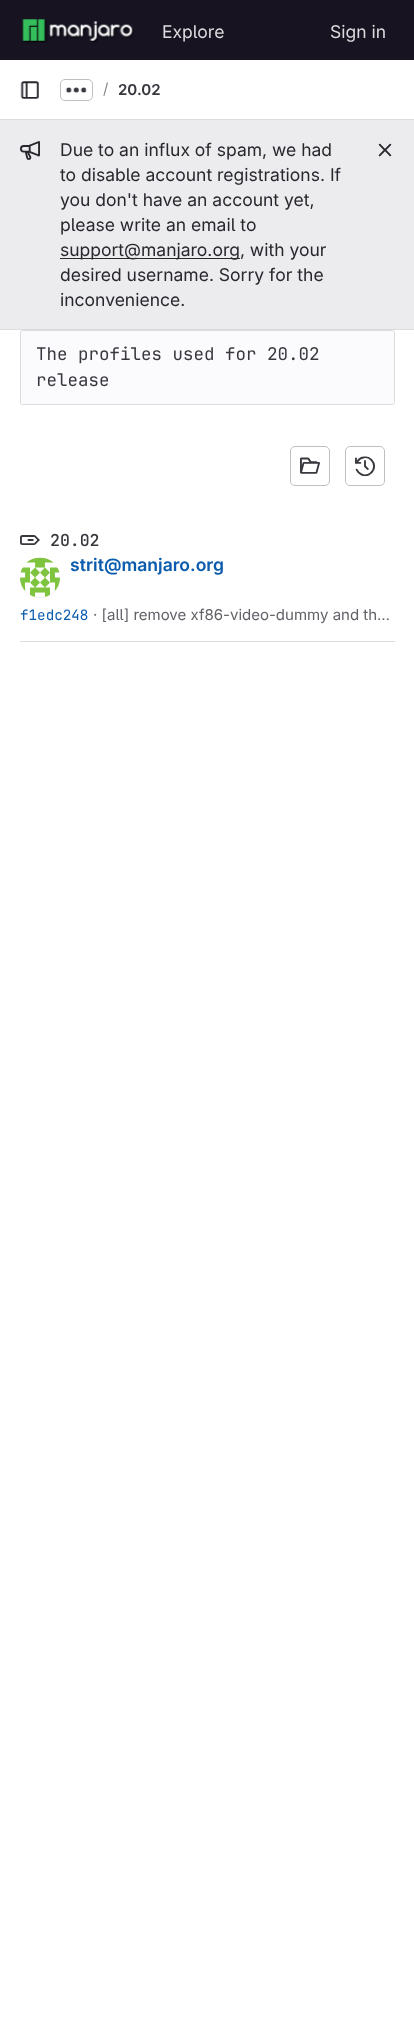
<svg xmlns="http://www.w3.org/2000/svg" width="414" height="2034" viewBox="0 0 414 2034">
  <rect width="100%" height="100%" fill="#ffffff"/>
  <rect x="0" y="0" width="414" height="60" fill="#171321"/>
  <image x="22" y="19" width="112" height="24" href="img1.png"/>
  <text x="162" y="38" font-family="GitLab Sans" font-size="17.5" fill="#dcdcde">Explore</text>
  <text x="330" y="38" font-family="GitLab Sans" font-size="17.5" fill="#dcdcde">Sign in</text>
  <rect x="0" y="119" width="414" height="1" fill="#dcdcde"/>
  <image x="20" y="81" width="19" height="18" href="img2.png"/>
  <rect x="60.5" y="79.5" width="32" height="21" rx="4.5" fill="none" stroke="#bfbfc3"/>
  <image x="65" y="87" width="22" height="6" href="img3.png"/>
  <text x="103" y="94" font-family="GitLab Sans" font-size="15" fill="#89888d">/</text>
  <text x="118" y="95" font-family="GitLab Sans" font-size="15" font-weight="600" fill="#3a383f">20.02</text>
  <rect x="0" y="120" width="414" height="209" fill="#ececef"/>
  <rect x="0" y="329" width="414" height="1" fill="#dcdcde"/>
  <image x="20" y="141" width="20" height="19" href="img4.png"/>
  <text x="60" y="156" font-family="GitLab Sans" font-size="17.5" fill="#28272d">Due to an influx of spam, we had</text>
  <text x="60" y="181" font-family="GitLab Sans" font-size="17.5" fill="#28272d">to disable account registrations. If</text>
  <text x="60" y="206" font-family="GitLab Sans" font-size="17.5" fill="#28272d">you don't have an account yet,</text>
  <text x="60" y="231" font-family="GitLab Sans" font-size="17.5" fill="#28272d">please write an email to</text>
  <rect x="60" y="258" width="180" height="1" fill="#28272d"/>
  <text x="60" y="256" font-family="GitLab Sans" font-size="17.5" fill="#28272d">support@manjaro.org, with your</text>
  <text x="60" y="281" font-family="GitLab Sans" font-size="17.5" fill="#28272d">desired username. Sorry for the</text>
  <text x="60" y="306" font-family="GitLab Sans" font-size="17.5" fill="#28272d">inconvenience.</text>
  <image x="378" y="143" width="14" height="14" href="img5.png"/>
  <rect x="20" y="641" width="375" height="1" fill="#dcdcde"/>
  <rect x="20.5" y="330.5" width="374" height="74" rx="2" fill="#fbfafd" stroke="#dcdcde"/>
  <text x="36" y="360" font-family="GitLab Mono" font-size="17.5" fill="#3a383f">The profiles used for 20.02</text>
  <text x="36" y="386" font-family="GitLab Mono" font-size="17.5" fill="#3a383f">release</text>
  <rect x="290.5" y="446.5" width="39" height="39" rx="4.5" fill="none" stroke="#bfbfc3"/>
  <image x="300" y="457" width="20" height="17" href="img6.png"/>
  <rect x="345.5" y="446.5" width="39" height="39" rx="4.5" fill="none" stroke="#bfbfc3"/>
  <image x="355" y="456" width="20" height="21" href="img7.png"/>
  <image x="20" y="535" width="20" height="10" href="img8.png"/>
  <text x="50" y="546" font-family="GitLab Mono" font-size="16.5" font-weight="600" fill="#3a383f">20.02</text>
  <circle cx="40" cy="578" r="19.5" fill="none" stroke="#e8e7e9"/>
  <image x="20" y="557" width="40" height="41" href="img9.png"/>
  <text x="70" y="571" font-family="GitLab Sans" font-size="17.5" font-weight="600" fill="#0b5cad">strit@manjaro.org</text>
  <text x="20" y="620" font-family="GitLab Mono" font-size="14.25" fill="#0b5cad">f1edc248</text>
  <text x="93" y="620" font-family="GitLab Sans" font-size="15" fill="#626168">· [all] remove xf86-video-dummy and th…</text>
</svg>
